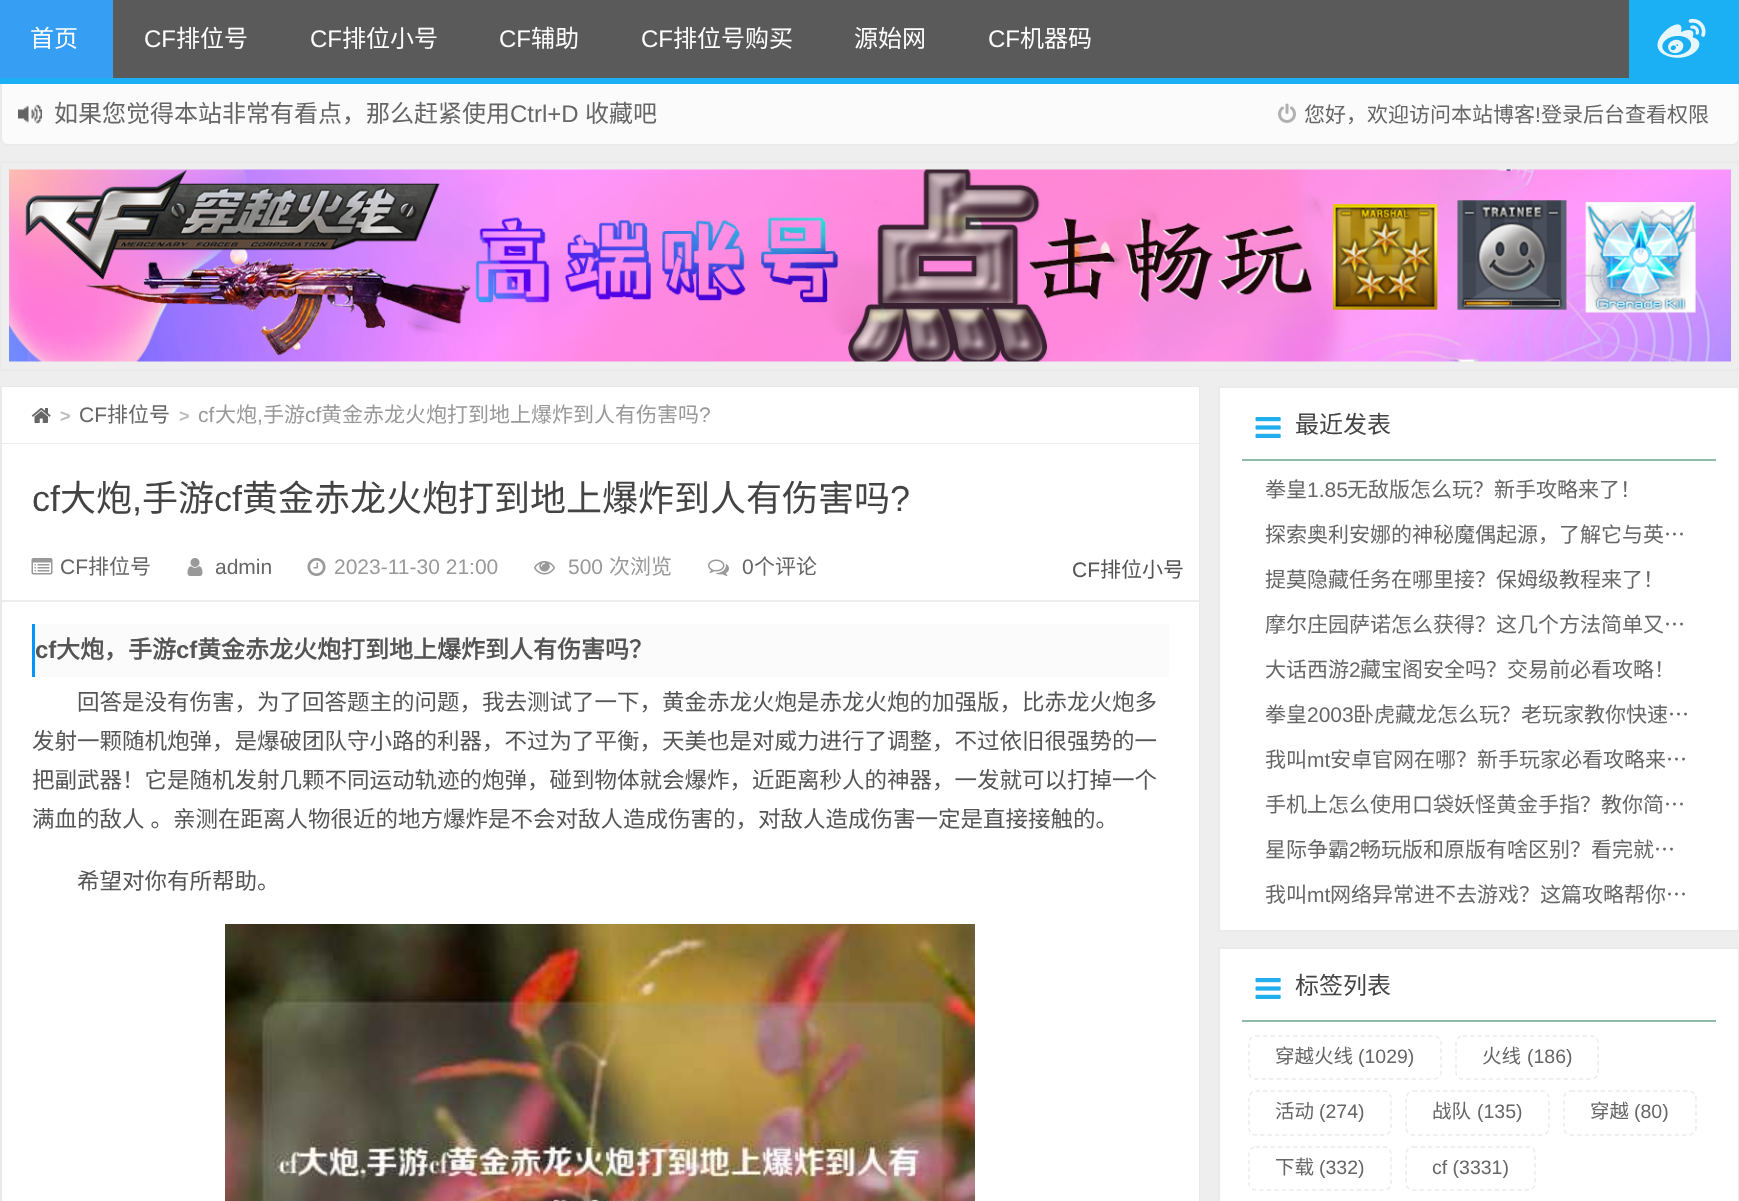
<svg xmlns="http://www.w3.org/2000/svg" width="1739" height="1201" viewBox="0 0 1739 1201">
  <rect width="100%" height="100%" fill="#eeeeee"/>
  <rect x="113" y="0" width="1516" height="78" fill="#5a5a5a"/>
  <rect x="0" y="78" width="1739" height="6" fill="#1bb0f3"/>
  <rect x="0" y="0" width="113" height="78" fill="#369ff3"/>
  <text x="30" y="47" font-family="Noto Sans CJK SC" font-size="24" fill="#fdfdfd">首页</text>
  <text x="144" y="47" font-family="Liberation Sans" font-size="24" fill="#fdfdfd">CF</text>
  <text x="176" y="47" font-family="Noto Sans CJK SC" font-size="24" fill="#fdfdfd">排位号</text>
  <text x="310" y="47" font-family="Liberation Sans" font-size="24" fill="#fdfdfd">CF</text>
  <text x="342" y="47" font-family="Noto Sans CJK SC" font-size="24" fill="#fdfdfd">排位小号</text>
  <text x="499" y="47" font-family="Liberation Sans" font-size="24" fill="#fdfdfd">CF</text>
  <text x="531" y="47" font-family="Noto Sans CJK SC" font-size="24" fill="#fdfdfd">辅助</text>
  <text x="641" y="47" font-family="Liberation Sans" font-size="24" fill="#fdfdfd">CF</text>
  <text x="673" y="47" font-family="Noto Sans CJK SC" font-size="24" fill="#fdfdfd">排位号购买</text>
  <text x="854" y="47" font-family="Noto Sans CJK SC" font-size="24" fill="#fdfdfd">源始网</text>
  <text x="988" y="47" font-family="Liberation Sans" font-size="24" fill="#fdfdfd">CF</text>
  <text x="1020" y="47" font-family="Noto Sans CJK SC" font-size="24" fill="#fdfdfd">机器码</text>
  <rect x="1629" y="0" width="110" height="78" fill="#1bb0f3"/>
  <image x="1657" y="18" width="49" height="40" href="img1.png"/>
  <path d="M2 84H1739V138C1739 141.5 1736.5 144 1733 144H8C4.5 144 2 141.5 2 138Z" fill="#fbfbfb"/>
  <image x="18" y="104" width="24" height="20" href="img2.png"/>
  <path d="M0 84H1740V138C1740 142 1737 146 1732 146H8C3 146 0 142 0 138ZM2 84H1738V138C1738 141 1736 144 1732 144H8C4 144 2 141 2 138Z" fill="#eaeaea" fill-rule="evenodd"/>
  <text x="54" y="122" font-family="Noto Sans CJK SC" font-size="24" fill="#666666">如果您觉得本站非常有看点，那么赶紧使用</text>
  <text x="510" y="122" font-family="Liberation Sans" font-size="24" fill="#666666">Ctrl+D</text>
  <text x="585" y="122" font-family="Noto Sans CJK SC" font-size="24" fill="#666666">收藏吧</text>
  <image x="1278" y="103" width="18" height="20" href="img3.png"/>
  <text x="1304" y="122" font-family="Noto Sans CJK SC" font-size="21" fill="#666666">您好，欢迎访问本站博客</text>
  <text x="1535" y="122" font-family="Liberation Sans" font-size="21" fill="#666666">!</text>
  <text x="1541" y="122" font-family="Noto Sans CJK SC" font-size="21" fill="#666666">登录后台查看权限</text>
  <rect x="1" y="162" width="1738" height="208" fill="none" stroke="#eaeaea" stroke-width="2"/>
  <image x="9" y="169" width="1722" height="193" href="img4.png"/>
  <rect x="1" y="387" width="1198" height="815" fill="none" stroke="#eaeaea" stroke-width="2"/>
  <rect x="2" y="387" width="1197" height="56" fill="#ffffff"/>
  <image x="31" y="408" width="20" height="15" href="img5.png"/>
  <text x="60" y="422" font-family="Liberation Sans" font-size="18" font-weight="bold" fill="#bbbbbb">&gt;</text>
  <text x="79" y="422" font-family="Liberation Sans" font-size="21" fill="#666666">CF</text>
  <text x="107" y="422" font-family="Noto Sans CJK SC" font-size="21" fill="#666666">排位号</text>
  <text x="179" y="422" font-family="Liberation Sans" font-size="18" font-weight="bold" fill="#bbbbbb">&gt;</text>
  <text x="198" y="422" font-family="Liberation Sans" font-size="21" fill="#999999">cf</text>
  <text x="215" y="422" font-family="Noto Sans CJK SC" font-size="21" fill="#999999">大炮</text>
  <text x="263" y="422" font-family="Noto Sans CJK SC" font-size="21" fill="#999999">手游</text>
  <text x="305" y="422" font-family="Liberation Sans" font-size="21" fill="#999999">cf</text>
  <text x="321" y="422" font-family="Noto Sans CJK SC" font-size="21" fill="#999999">黄金赤龙火炮打到地上爆炸到人有伤害吗</text>
  <text x="699" y="422" font-family="Liberation Sans" font-size="21" fill="#999999">?</text>
  <text x="257" y="422" font-family="Liberation Sans" font-size="21" fill="#999999">,</text>
  <rect x="2" y="444" width="1197" height="156" fill="#ffffff"/>
  <rect x="1198" y="600" width="1" height="2" fill="#eeeeee"/>
  <text x="32" y="511" font-family="Liberation Sans" font-size="36" fill="#444444">cf</text>
  <text x="60" y="511" font-family="Noto Sans CJK SC" font-size="36" fill="#444444">大炮</text>
  <text x="132" y="511" font-family="Liberation Sans" font-size="36" fill="#444444">,</text>
  <text x="142" y="511" font-family="Noto Sans CJK SC" font-size="36" fill="#444444">手游</text>
  <text x="214" y="511" font-family="Liberation Sans" font-size="36" fill="#444444">cf</text>
  <text x="242" y="511" font-family="Noto Sans CJK SC" font-size="36" fill="#444444">黄金赤龙火炮打到地上爆炸到人有伤害吗</text>
  <text x="890" y="511" font-family="Liberation Sans" font-size="36" fill="#444444">?</text>
  <image x="31" y="558" width="22" height="17" href="img6.png"/>
  <text x="60" y="574" font-family="Liberation Sans" font-size="21" fill="#666666">CF</text>
  <text x="88" y="574" font-family="Noto Sans CJK SC" font-size="21" fill="#666666">排位号</text>
  <image x="187" y="558" width="16" height="18" href="img7.png"/>
  <text x="215" y="574" font-family="Liberation Sans" font-size="21" fill="#666666">admin</text>
  <image x="307" y="558" width="19" height="18" href="img8.png"/>
  <text x="334" y="574" font-family="Liberation Sans" font-size="21" fill="#999999">2023-11-30 21:00</text>
  <image x="534" y="561" width="21" height="14" href="img9.png"/>
  <text x="568" y="574" font-family="Liberation Sans" font-size="21" fill="#999999">500</text>
  <text x="609" y="574" font-family="Noto Sans CJK SC" font-size="21" fill="#999999">次浏览</text>
  <image x="708" y="559" width="21" height="17" href="img10.png"/>
  <text x="742" y="574" font-family="Liberation Sans" font-size="21" fill="#666666">0</text>
  <text x="754" y="574" font-family="Noto Sans CJK SC" font-size="21" fill="#666666">个评论</text>
  <text x="1072" y="577" font-family="Liberation Sans" font-size="21" fill="#555555">CF</text>
  <text x="1100" y="577" font-family="Noto Sans CJK SC" font-size="21" fill="#555555">排位小号</text>
  <rect x="2" y="602" width="1197" height="599" fill="#ffffff"/>
  <rect x="35" y="624" width="1134" height="53" fill="#fbfbfb"/>
  <rect x="32" y="624" width="3" height="53" fill="#0095ff"/>
  <text x="35" y="658" font-family="Liberation Sans" font-size="24" font-weight="bold" fill="#555555">cf</text>
  <text x="56" y="658" font-family="Noto Sans CJK SC" font-size="24" font-weight="bold" fill="#555555">大炮，手游</text>
  <text x="176" y="658" font-family="Liberation Sans" font-size="24" font-weight="bold" fill="#555555">cf</text>
  <text x="197" y="658" font-family="Noto Sans CJK SC" font-size="24" font-weight="bold" fill="#555555">黄金赤龙火炮打到地上爆炸到人有伤害吗？</text>
  <text x="77" y="710" font-family="Noto Sans CJK SC" font-size="22.5" fill="#555555">回答是没有伤害，为了回答题主的问题，我去测试了一下，黄金赤龙火炮是赤龙火炮的加强版，比赤龙火炮多</text>
  <text x="32" y="749" font-family="Noto Sans CJK SC" font-size="22.5" fill="#555555">发射一颗随机炮弹，是爆破团队守小路的利器，不过为了平衡，天美也是对威力进行了调整，不过依旧很强势的一</text>
  <text x="32" y="788" font-family="Noto Sans CJK SC" font-size="22.5" fill="#555555">把副武器！它是随机发射几颗不同运动轨迹的炮弹，碰到物体就会爆炸，近距离秒人的神器，一发就可以打掉一个</text>
  <text x="32" y="827" word-spacing="1" font-family="Noto Sans CJK SC" font-size="22.5" fill="#555555">满血的敌人 。亲测在距离人物很近的地方爆炸是不会对敌人造成伤害的，对敌人造成伤害一定是直接接触的。</text>
  <text x="77" y="889" font-family="Noto Sans CJK SC" font-size="22.5" fill="#555555">希望对你有所帮助。</text>
  <image x="225" y="924" width="750" height="277" href="img11.png"/>
  <rect x="1219" y="387" width="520" height="544" fill="#ffffff" stroke="#eaeaea" stroke-width="2"/>
  <image x="1255" y="417" width="26" height="21" href="img12.png"/>
  <rect x="1242" y="459" width="474" height="2" fill="#90bba8"/>
  <text x="1295" y="433" font-family="Noto Sans CJK SC" font-size="24" fill="#444444">最近发表</text>
  <text x="1265" y="497" font-family="Noto Sans CJK SC" font-size="21" fill="#666666">拳皇</text>
  <text x="1307" y="497" font-family="Liberation Sans" font-size="21" fill="#666666">1.85</text>
  <text x="1347" y="497" font-family="Noto Sans CJK SC" font-size="21" fill="#666666">无敌版怎么玩？新手攻略来了！</text>
  <text x="1265" y="542" font-family="Noto Sans CJK SC" font-size="21" fill="#666666">探索奥利安娜的神秘魔偶起源，了解它与英…</text>
  <text x="1265" y="587" font-family="Noto Sans CJK SC" font-size="21" fill="#666666">提莫隐藏任务在哪里接？保姆级教程来了！</text>
  <text x="1265" y="632" font-family="Noto Sans CJK SC" font-size="21" fill="#666666">摩尔庄园萨诺怎么获得？这几个方法简单又…</text>
  <text x="1265" y="677" font-family="Noto Sans CJK SC" font-size="21" fill="#666666">大话西游</text>
  <text x="1349" y="677" font-family="Liberation Sans" font-size="21" fill="#666666">2</text>
  <text x="1360" y="677" font-family="Noto Sans CJK SC" font-size="21" fill="#666666">藏宝阁安全吗？交易前必看攻略！</text>
  <text x="1265" y="722" font-family="Noto Sans CJK SC" font-size="21" fill="#666666">拳皇</text>
  <text x="1307" y="722" font-family="Liberation Sans" font-size="21" fill="#666666">2003</text>
  <text x="1353" y="722" font-family="Noto Sans CJK SC" font-size="21" fill="#666666">卧虎藏龙怎么玩？老玩家教你快速…</text>
  <text x="1265" y="767" font-family="Noto Sans CJK SC" font-size="21" fill="#666666">我叫</text>
  <text x="1307" y="767" font-family="Liberation Sans" font-size="21" fill="#666666">mt</text>
  <text x="1330" y="767" font-family="Noto Sans CJK SC" font-size="21" fill="#666666">安卓官网在哪？新手玩家必看攻略来…</text>
  <text x="1265" y="812" font-family="Noto Sans CJK SC" font-size="21" fill="#666666">手机上怎么使用口袋妖怪黄金手指？教你简…</text>
  <text x="1265" y="857" font-family="Noto Sans CJK SC" font-size="21" fill="#666666">星际争霸</text>
  <text x="1349" y="857" font-family="Liberation Sans" font-size="21" fill="#666666">2</text>
  <text x="1360" y="857" font-family="Noto Sans CJK SC" font-size="21" fill="#666666">畅玩版和原版有啥区别？看完就…</text>
  <text x="1265" y="902" font-family="Noto Sans CJK SC" font-size="21" fill="#666666">我叫</text>
  <text x="1307" y="902" font-family="Liberation Sans" font-size="21" fill="#666666">mt</text>
  <text x="1330" y="902" font-family="Noto Sans CJK SC" font-size="21" fill="#666666">网络异常进不去游戏？这篇攻略帮你…</text>
  <rect x="1219" y="948" width="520" height="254" fill="#ffffff" stroke="#eaeaea" stroke-width="2"/>
  <image x="1255" y="978" width="26" height="21" href="img12.png"/>
  <rect x="1242" y="1020" width="474" height="2" fill="#90bba8"/>
  <text x="1295" y="994" font-family="Noto Sans CJK SC" font-size="24" fill="#444444">标签列表</text>
  <path d="M1255.5 1036H1434C1437.5 1036 1441 1039 1441 1042.5V1072.5C1441 1076 1437.5 1079 1434 1079H1255.5C1252 1079 1249 1076 1249 1072.5V1042.5C1249 1039 1252 1036 1255.5 1036Z" fill="none" stroke="#ececec" stroke-width="1.5" stroke-dasharray="4.5 3"/>
  <text x="1275" y="1063" font-family="Noto Sans CJK SC" font-size="19.5" fill="#666666">穿越火线</text>
  <text x="1358" y="1063" font-family="Liberation Sans" font-size="19.5" fill="#666666">(1029)</text>
  <path d="M1462.5 1036H1591.5C1595 1036 1598 1039 1598 1042.5V1072.5C1598 1076 1595 1079 1591.5 1079H1462.5C1459 1079 1456 1076 1456 1072.5V1042.5C1456 1039 1459 1036 1462.5 1036Z" fill="none" stroke="#ececec" stroke-width="1.5" stroke-dasharray="4.5 3"/>
  <text x="1482" y="1063" font-family="Noto Sans CJK SC" font-size="19.5" fill="#666666">火线</text>
  <text x="1527" y="1063" font-family="Liberation Sans" font-size="19.5" fill="#666666">(186)</text>
  <path d="M1255.5 1091H1384.5C1388 1091 1391 1094.5 1391 1098V1128C1391 1131.5 1388 1135 1384.5 1135H1255.5C1252 1135 1249 1131.5 1249 1128V1098C1249 1094.5 1252 1091 1255.5 1091Z" fill="none" stroke="#ececec" stroke-width="1.5" stroke-dasharray="4.5 3"/>
  <text x="1275" y="1118" font-family="Noto Sans CJK SC" font-size="19.5" fill="#666666">活动</text>
  <text x="1319" y="1118" font-family="Liberation Sans" font-size="19.5" fill="#666666">(274)</text>
  <path d="M1413 1091H1542C1545.5 1091 1549 1094.5 1549 1098V1128C1549 1131.5 1545.5 1135 1542 1135H1413C1409.5 1135 1406 1131.5 1406 1128V1098C1406 1094.5 1409.5 1091 1413 1091Z" fill="none" stroke="#ececec" stroke-width="1.5" stroke-dasharray="4.5 3"/>
  <text x="1432" y="1118" font-family="Noto Sans CJK SC" font-size="19.5" fill="#666666">战队</text>
  <text x="1477" y="1118" font-family="Liberation Sans" font-size="19.5" fill="#666666">(135)</text>
  <path d="M1570.5 1091H1689C1692.5 1091 1696 1094.5 1696 1098V1128C1696 1131.5 1692.5 1135 1689 1135H1570.5C1567 1135 1564 1131.5 1564 1128V1098C1564 1094.5 1567 1091 1570.5 1091Z" fill="none" stroke="#ececec" stroke-width="1.5" stroke-dasharray="4.5 3"/>
  <text x="1590" y="1118" font-family="Noto Sans CJK SC" font-size="19.5" fill="#666666">穿越</text>
  <text x="1634" y="1118" font-family="Liberation Sans" font-size="19.5" fill="#666666">(80)</text>
  <path d="M1255.5 1147H1384.5C1388 1147 1391 1150 1391 1153.5V1183.5C1391 1187 1388 1190 1384.5 1190H1255.5C1252 1190 1249 1187 1249 1183.5V1153.5C1249 1150 1252 1147 1255.5 1147Z" fill="none" stroke="#ececec" stroke-width="1.5" stroke-dasharray="4.5 3"/>
  <text x="1275" y="1174" font-family="Noto Sans CJK SC" font-size="19.5" fill="#666666">下载</text>
  <text x="1319" y="1174" font-family="Liberation Sans" font-size="19.5" fill="#666666">(332)</text>
  <path d="M1413 1147H1528.5C1532 1147 1535 1150 1535 1153.5V1183.5C1535 1187 1532 1190 1528.5 1190H1413C1409.5 1190 1406 1187 1406 1183.5V1153.5C1406 1150 1409.5 1147 1413 1147Z" fill="none" stroke="#ececec" stroke-width="1.5" stroke-dasharray="4.5 3"/>
  <text x="1432" y="1174" font-family="Liberation Sans" font-size="19.5" fill="#666666">cf (3331)</text>
</svg>
